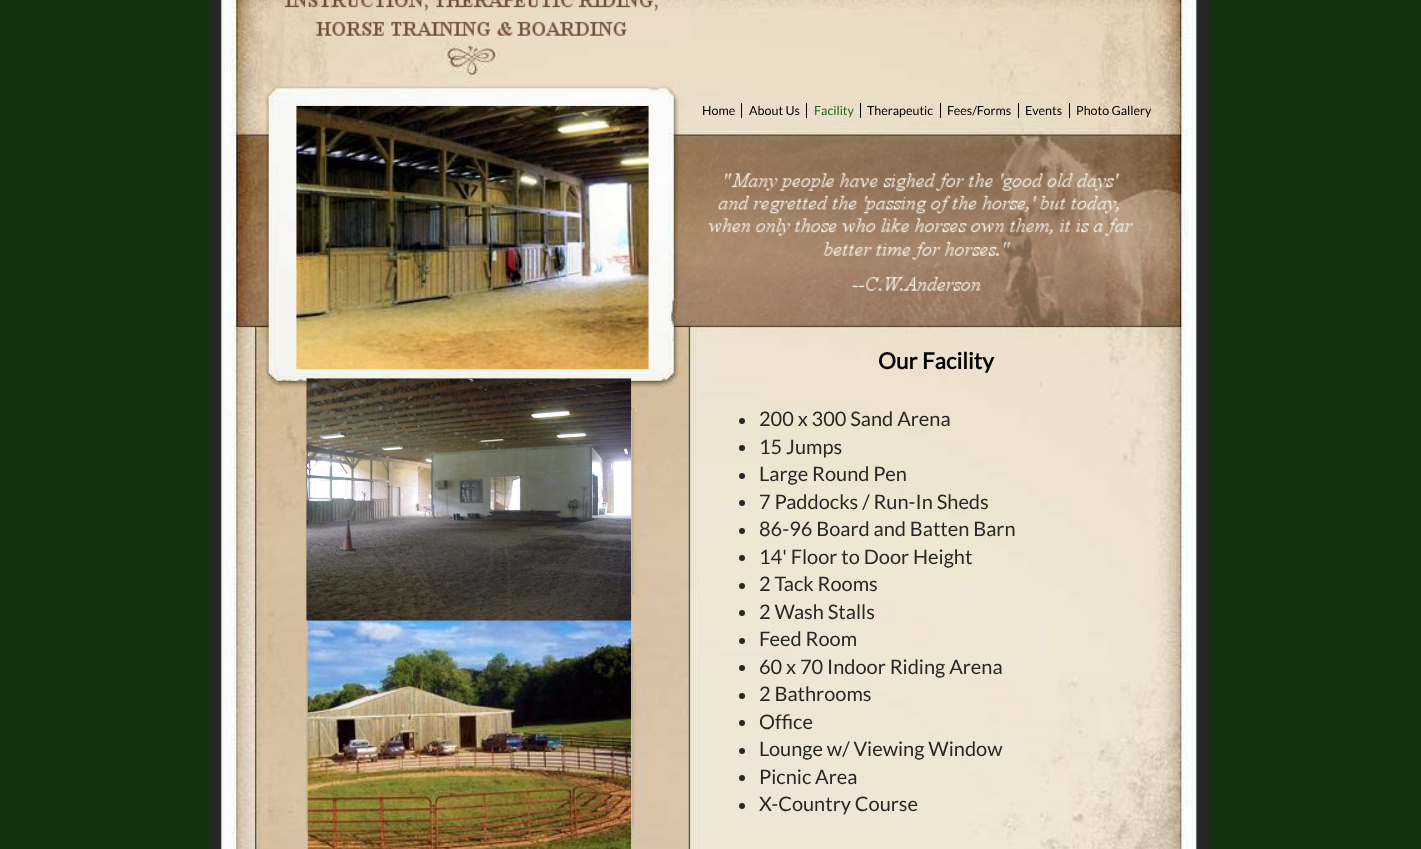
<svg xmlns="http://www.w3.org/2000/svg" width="1421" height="849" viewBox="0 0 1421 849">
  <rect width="100%" height="100%" fill="#11320d"/>
  <image x="209" y="0" width="1000" height="849" href="img1.png"/>
  <image x="252" y="0" width="439" height="40" href="img2.png"/>
  <image x="296" y="105" width="353" height="265" href="img3.png"/>
  <text x="702" y="115" font-family="Lato" font-size="12.5" fill="#000000">Home</text>
  <rect x="741" y="103" width="1" height="15" fill="#000000"/>
  <text x="749" y="115" font-family="Lato" font-size="12.5" fill="#000000">About Us</text>
  <rect x="806" y="103" width="1" height="15" fill="#000000"/>
  <text x="814" y="115" font-family="Lato" font-size="12.5" fill="#23671c">Facility</text>
  <rect x="860" y="103" width="1" height="15" fill="#000000"/>
  <text x="867" y="115" font-family="Lato" font-size="12.5" fill="#000000">Therapeutic</text>
  <rect x="940" y="103" width="1" height="15" fill="#000000"/>
  <text x="947" y="115" font-family="Lato" font-size="12.5" fill="#000000">Fees/Forms</text>
  <rect x="1018" y="103" width="1" height="15" fill="#000000"/>
  <text x="1025" y="115" font-family="Lato" font-size="12.5" fill="#000000">Events</text>
  <rect x="1069" y="103" width="1" height="15" fill="#000000"/>
  <text x="1076" y="115" font-family="Lato" font-size="12.5" fill="#000000">Photo Gallery</text>
  <image x="706" y="143" width="428" height="173" href="img4.png"/>
  <text x="878" y="369" font-family="Lato" font-size="22.5" font-weight="bold" fill="#000000">Our Facility</text>
  <image x="307" y="615" width="325" height="234" href="img6.png"/>
  <image x="306" y="378" width="326" height="243" href="img5.png"/>
  <circle cx="742" cy="421" r="3" fill="#292626"/>
  <text x="759" y="426" font-family="Lato" font-size="20" fill="#292626">200 x 300 Sand Arena</text>
  <circle cx="742" cy="448" r="3" fill="#292626"/>
  <text x="759" y="454" font-family="Lato" font-size="20" fill="#292626">15 Jumps</text>
  <circle cx="742" cy="476" r="3" fill="#292626"/>
  <text x="759" y="481" font-family="Lato" font-size="20" fill="#292626">Large Round Pen</text>
  <circle cx="742" cy="503" r="3" fill="#292626"/>
  <text x="759" y="509" font-family="Lato" font-size="20" fill="#292626">7 Paddocks / Run-In Sheds</text>
  <circle cx="742" cy="531" r="3" fill="#292626"/>
  <text x="759" y="536" font-family="Lato" font-size="20" fill="#292626">86-96 Board and Batten Barn</text>
  <circle cx="742" cy="558" r="3" fill="#292626"/>
  <text x="759" y="564" font-family="Lato" font-size="20" fill="#292626">14' Floor to Door Height</text>
  <circle cx="742" cy="586" r="3" fill="#292626"/>
  <text x="759" y="591" font-family="Lato" font-size="20" fill="#292626">2 Tack Rooms</text>
  <circle cx="742" cy="613" r="3" fill="#292626"/>
  <text x="759" y="619" font-family="Lato" font-size="20" fill="#292626">2 Wash Stalls</text>
  <circle cx="742" cy="641" r="3" fill="#292626"/>
  <text x="759" y="646" font-family="Lato" font-size="20" fill="#292626">Feed Room</text>
  <circle cx="742" cy="668" r="3" fill="#292626"/>
  <text x="759" y="674" font-family="Lato" font-size="20" fill="#292626">60 x 70 Indoor Riding Arena</text>
  <circle cx="742" cy="696" r="3" fill="#292626"/>
  <text x="759" y="701" font-family="Lato" font-size="20" fill="#292626">2 Bathrooms</text>
  <circle cx="742" cy="723" r="3" fill="#292626"/>
  <text x="759" y="729" font-family="Lato" font-size="20" fill="#292626">Office</text>
  <circle cx="742" cy="751" r="3" fill="#292626"/>
  <text x="759" y="756" font-family="Lato" font-size="20" fill="#292626">Lounge w/ Viewing Window</text>
  <circle cx="742" cy="778" r="3" fill="#292626"/>
  <text x="759" y="784" font-family="Lato" font-size="20" fill="#292626">Picnic Area</text>
  <circle cx="742" cy="806" r="3" fill="#292626"/>
  <text x="759" y="811" font-family="Lato" font-size="20" fill="#292626">X-Country Course</text>
</svg>
